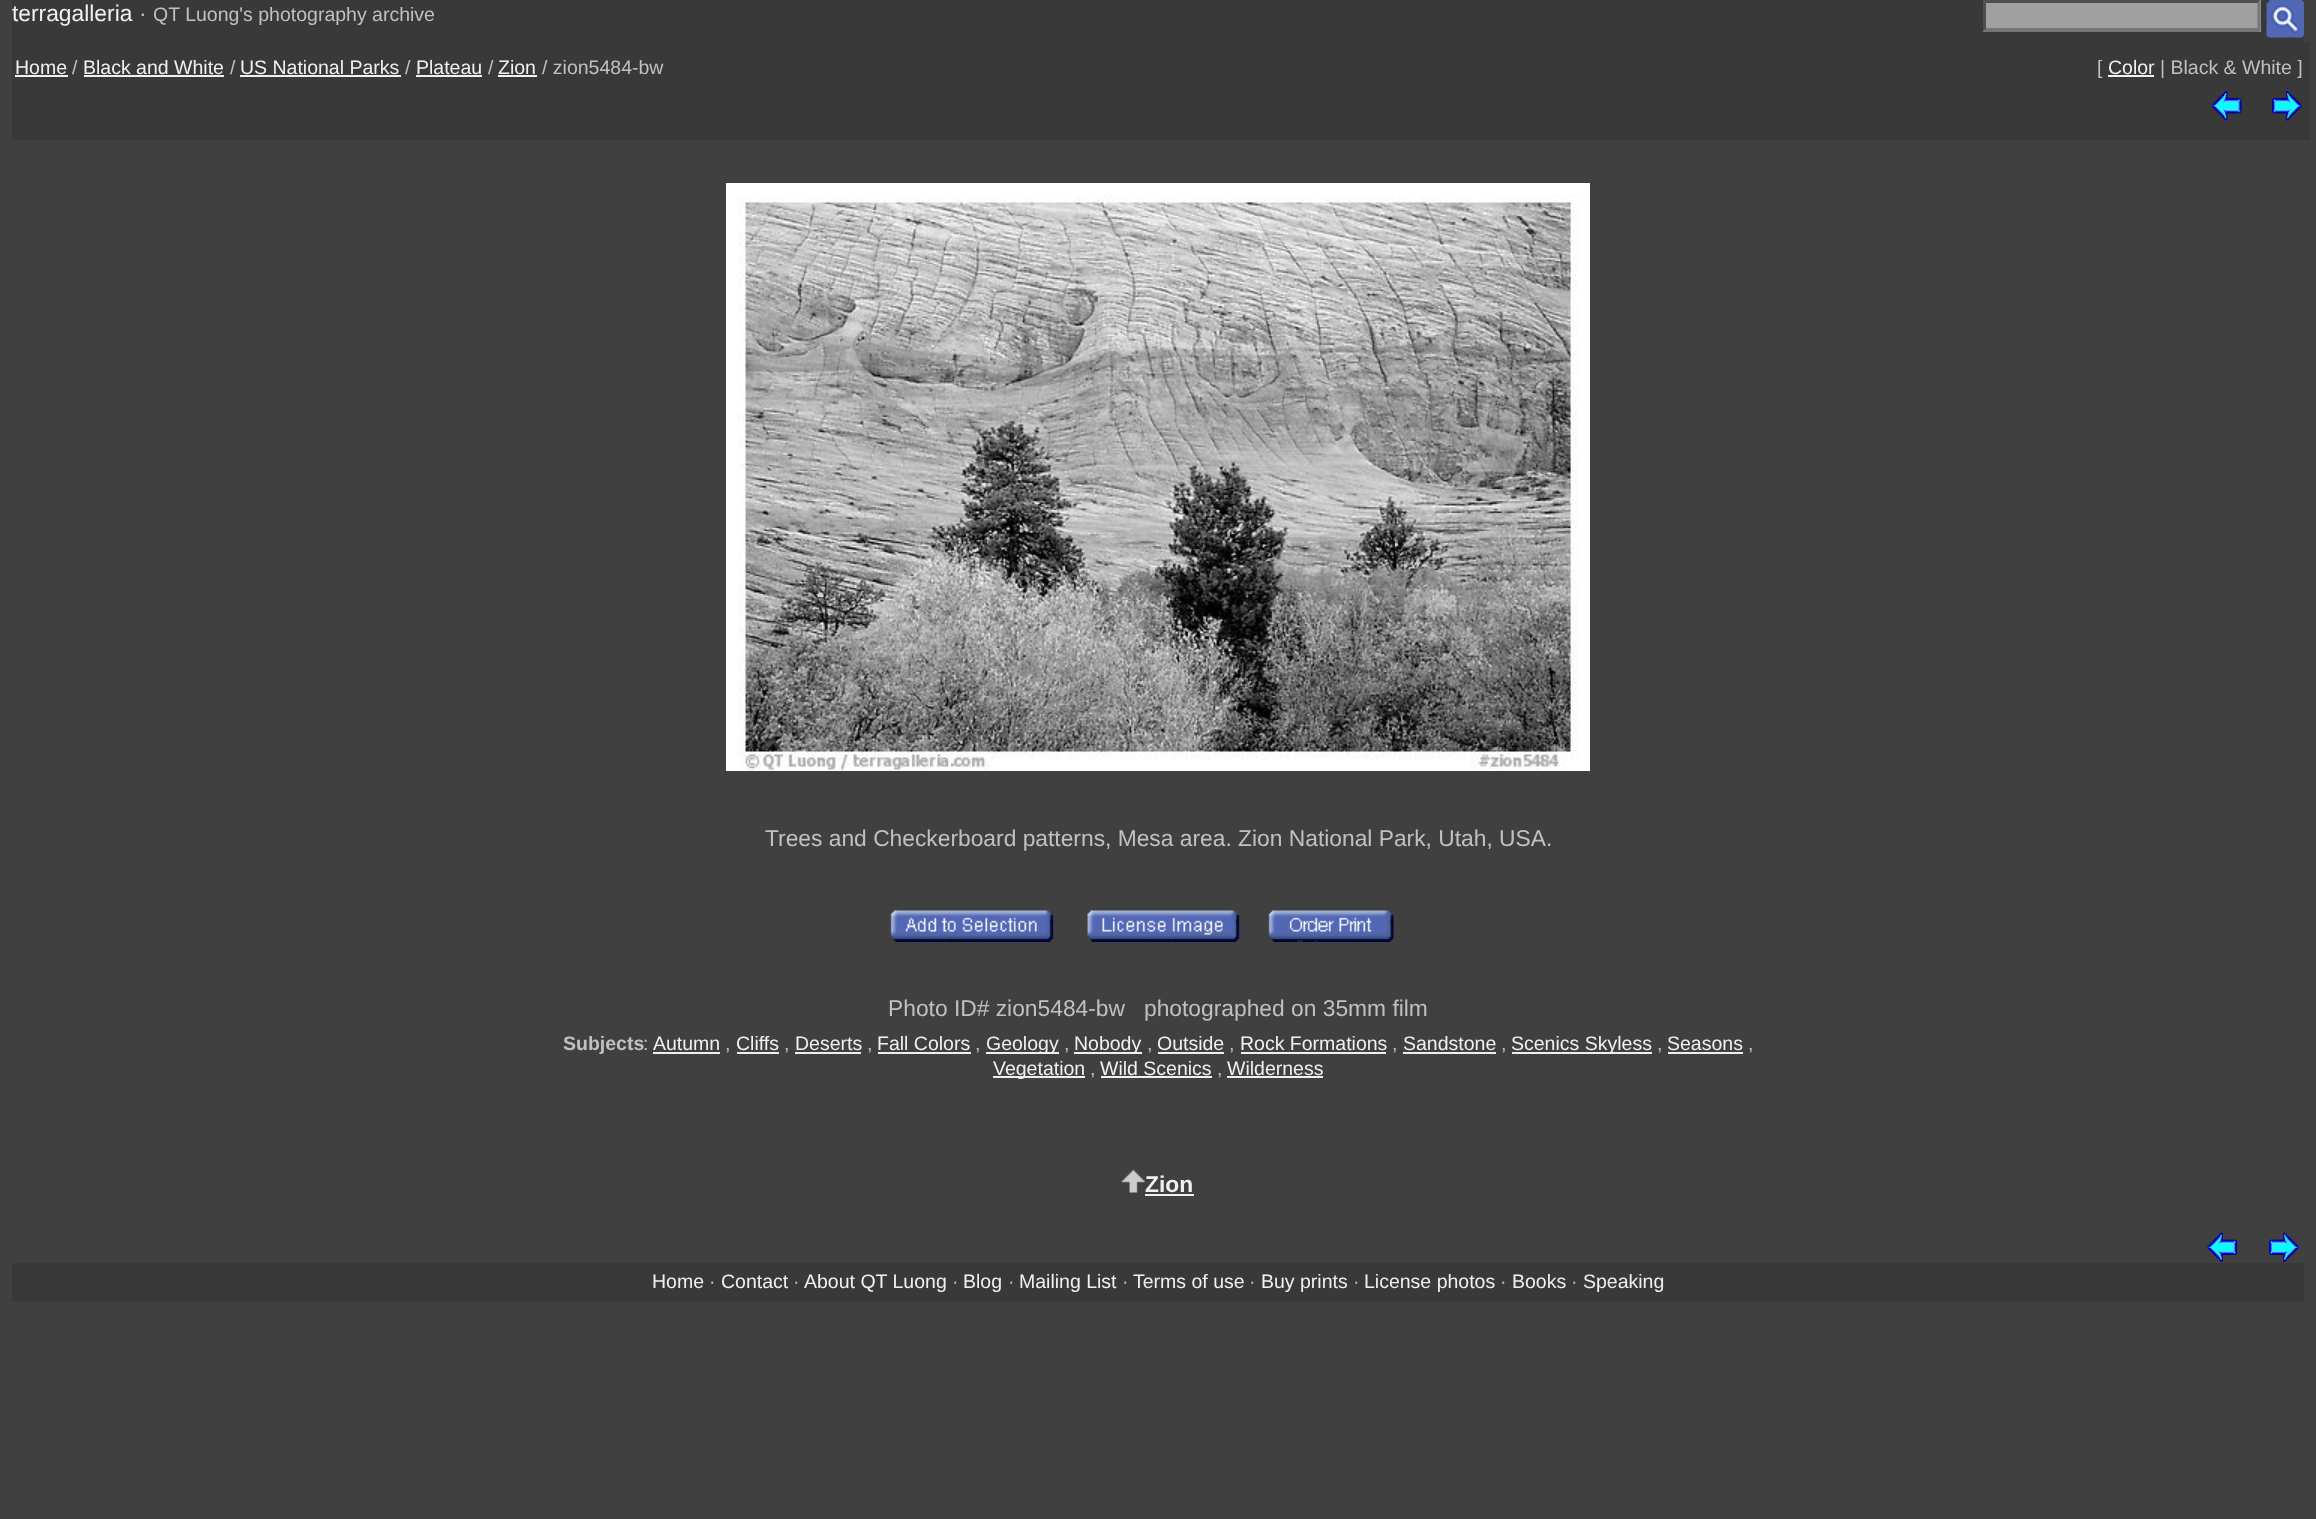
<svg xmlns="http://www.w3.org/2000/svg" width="2316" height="1519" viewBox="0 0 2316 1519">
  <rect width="100%" height="100%" fill="#404040"/>
  <rect x="12" y="0" width="2292" height="42" fill="#393939"/>
  <text x="12" y="21" font-family="Liberation Sans" font-size="22.8" fill="#f0f0f0">terragalleria</text>
  <text x="139" y="21" font-family="Liberation Sans" font-size="22.8" fill="#c0c0c0">·</text>
  <text x="153" y="21" font-family="Liberation Sans" font-size="19.5" fill="#c0c0c0">QT Luong's photography archive</text>
  <rect x="1983" y="0" width="278" height="32" fill="#a0a0a0"/>
  <path d="M1983 0H2260L2258 3H1986Z" fill="#4f4f4f"/>
  <path d="M2260.5 0V31.5L2257.5 28.5V3Z" fill="#767676"/>
  <path d="M2260 32H1983L1986 28H2258Z" fill="#767676"/>
  <path d="M1983 31.5V0L1986 3V28.5Z" fill="#4f4f4f"/>
  <image x="2266" y="0" width="38" height="38" href="img1.png"/>
  <rect x="12" y="42" width="2298" height="98" fill="#393939"/>
  <text x="15" y="74" font-family="Liberation Sans" font-size="19.5" fill="#f0f0f0">Home</text>
  <rect x="15" y="75" width="53" height="2" fill="#f0f0f0"/>
  <text x="72" y="74" font-family="Liberation Sans" font-size="19.5" fill="#c0c0c0">/</text>
  <text x="83" y="74" font-family="Liberation Sans" font-size="19.5" fill="#f0f0f0">Black and White</text>
  <rect x="84" y="75" width="140" height="2" fill="#f0f0f0"/>
  <text x="230" y="74" font-family="Liberation Sans" font-size="19.5" fill="#c0c0c0">/</text>
  <text x="240" y="74" font-family="Liberation Sans" font-size="19.5" fill="#f0f0f0">US National Parks</text>
  <rect x="240" y="75" width="161" height="2" fill="#f0f0f0"/>
  <text x="405" y="74" font-family="Liberation Sans" font-size="19.5" fill="#c0c0c0">/</text>
  <text x="416" y="74" font-family="Liberation Sans" font-size="19.5" fill="#f0f0f0">Plateau</text>
  <rect x="416" y="75" width="66" height="2" fill="#f0f0f0"/>
  <text x="488" y="74" font-family="Liberation Sans" font-size="19.5" fill="#c0c0c0">/</text>
  <text x="498" y="74" font-family="Liberation Sans" font-size="19.5" fill="#f0f0f0">Zion</text>
  <rect x="498" y="75" width="39" height="2" fill="#f0f0f0"/>
  <text x="542" y="74" font-family="Liberation Sans" font-size="19.5" fill="#c0c0c0">/ zion5484-bw</text>
  <text x="2097" y="74" font-family="Liberation Sans" font-size="19.5" fill="#c0c0c0">[</text>
  <text x="2108" y="74" font-family="Liberation Sans" font-size="19.5" fill="#f0f0f0">Color</text>
  <rect x="2108" y="75" width="46" height="2" fill="#f0f0f0"/>
  <text x="2160" y="74" font-family="Liberation Sans" font-size="19.5" fill="#c0c0c0">| Black &amp; White ]</text>
  <image x="2212" y="91" width="30" height="30" href="img2.png"/>
  <image x="2272" y="91" width="30" height="30" href="img3.png"/>
  <image x="726" y="183" width="864" height="588" href="img4.png"/>
  <text x="765" y="846" font-family="Liberation Sans" font-size="22.8" fill="#c0c0c0">Trees and Checkerboard patterns, Mesa area. Zion National Park, Utah, USA.</text>
  <image x="890" y="910" width="164" height="32" href="img5.png"/>
  <image x="1087" y="910" width="153" height="32" href="img6.png"/>
  <image x="1268" y="910" width="126" height="32" href="img7.png"/>
  <text x="888" y="1016" font-family="Liberation Sans" font-size="22.8" fill="#c0c0c0">Photo ID# zion5484-bw</text>
  <text x="1144" y="1016" font-family="Liberation Sans" font-size="22.8" fill="#c0c0c0">photographed on 35mm film</text>
  <text x="563" y="1050" font-family="Liberation Sans" font-size="19.5" font-weight="bold" fill="#c0c0c0">Subjects</text>
  <text x="643" y="1050" font-family="Liberation Sans" font-size="19.5" fill="#c0c0c0">:</text>
  <text x="653" y="1050" font-family="Liberation Sans" font-size="19.5" fill="#f0f0f0">Autumn</text>
  <rect x="653" y="1052" width="67" height="2" fill="#f0f0f0"/>
  <text x="725" y="1050" font-family="Liberation Sans" font-size="19.5" fill="#c0c0c0">,</text>
  <text x="736" y="1050" font-family="Liberation Sans" font-size="19.5" fill="#f0f0f0">Cliffs</text>
  <rect x="737" y="1052" width="42" height="2" fill="#f0f0f0"/>
  <text x="784" y="1050" font-family="Liberation Sans" font-size="19.5" fill="#c0c0c0">,</text>
  <text x="795" y="1050" font-family="Liberation Sans" font-size="19.5" fill="#f0f0f0">Deserts</text>
  <rect x="795" y="1052" width="66" height="2" fill="#f0f0f0"/>
  <text x="867" y="1050" font-family="Liberation Sans" font-size="19.5" fill="#c0c0c0">,</text>
  <text x="877" y="1050" font-family="Liberation Sans" font-size="19.5" fill="#f0f0f0">Fall Colors</text>
  <rect x="878" y="1052" width="93" height="2" fill="#f0f0f0"/>
  <text x="975" y="1050" font-family="Liberation Sans" font-size="19.5" fill="#c0c0c0">,</text>
  <rect x="986" y="1052" width="73" height="2" fill="#f0f0f0"/>
  <text x="986" y="1050" font-family="Liberation Sans" font-size="19.5" fill="#f0f0f0">Geology</text>
  <text x="1064" y="1050" font-family="Liberation Sans" font-size="19.5" fill="#c0c0c0">,</text>
  <rect x="1074" y="1052" width="68" height="2" fill="#f0f0f0"/>
  <text x="1074" y="1050" font-family="Liberation Sans" font-size="19.5" fill="#f0f0f0">Nobody</text>
  <text x="1147" y="1050" font-family="Liberation Sans" font-size="19.5" fill="#c0c0c0">,</text>
  <text x="1157" y="1050" font-family="Liberation Sans" font-size="19.5" fill="#f0f0f0">Outside</text>
  <rect x="1158" y="1052" width="66" height="2" fill="#f0f0f0"/>
  <text x="1229" y="1050" font-family="Liberation Sans" font-size="19.5" fill="#c0c0c0">,</text>
  <text x="1240" y="1050" font-family="Liberation Sans" font-size="19.5" fill="#f0f0f0">Rock Formations</text>
  <rect x="1241" y="1052" width="145" height="2" fill="#f0f0f0"/>
  <text x="1392" y="1050" font-family="Liberation Sans" font-size="19.5" fill="#c0c0c0">,</text>
  <text x="1403" y="1050" font-family="Liberation Sans" font-size="19.5" fill="#f0f0f0">Sandstone</text>
  <rect x="1403" y="1052" width="93" height="2" fill="#f0f0f0"/>
  <text x="1501" y="1050" font-family="Liberation Sans" font-size="19.5" fill="#c0c0c0">,</text>
  <rect x="1512" y="1052" width="140" height="2" fill="#f0f0f0"/>
  <text x="1511" y="1050" font-family="Liberation Sans" font-size="19.5" fill="#f0f0f0">Scenics Skyless</text>
  <text x="1657" y="1050" font-family="Liberation Sans" font-size="19.5" fill="#c0c0c0">,</text>
  <text x="1667" y="1050" font-family="Liberation Sans" font-size="19.5" fill="#f0f0f0">Seasons</text>
  <rect x="1668" y="1052" width="75" height="2" fill="#f0f0f0"/>
  <text x="1748" y="1050" font-family="Liberation Sans" font-size="19.5" fill="#c0c0c0">,</text>
  <rect x="993" y="1076" width="92" height="2" fill="#f0f0f0"/>
  <text x="993" y="1075" font-family="Liberation Sans" font-size="19.5" fill="#f0f0f0">Vegetation</text>
  <text x="1090" y="1075" font-family="Liberation Sans" font-size="19.5" fill="#c0c0c0">,</text>
  <text x="1100" y="1075" font-family="Liberation Sans" font-size="19.5" fill="#f0f0f0">Wild Scenics</text>
  <rect x="1101" y="1076" width="111" height="2" fill="#f0f0f0"/>
  <text x="1217" y="1075" font-family="Liberation Sans" font-size="19.5" fill="#c0c0c0">,</text>
  <text x="1227" y="1075" font-family="Liberation Sans" font-size="19.5" fill="#f0f0f0">Wilderness</text>
  <rect x="1227" y="1076" width="96" height="2" fill="#f0f0f0"/>
  <image x="1122" y="1169" width="23" height="24" href="img8.png"/>
  <text x="1145" y="1192" font-family="Liberation Sans" font-size="22.8" font-weight="bold" fill="#f0f0f0">Zion</text>
  <rect x="1145" y="1194" width="49" height="2" fill="#f0f0f0"/>
  <image x="2207" y="1232" width="30" height="30" href="img9.png"/>
  <image x="2269" y="1232" width="30" height="30" href="img10.png"/>
  <rect x="12" y="1263" width="2292" height="39" fill="#393939"/>
  <text x="652" y="1288" font-family="Liberation Sans" font-size="19.5" fill="#f0f0f0">Home</text>
  <text x="709" y="1288" font-family="Liberation Sans" font-size="19.5" fill="#c0c0c0">·</text>
  <text x="721" y="1288" font-family="Liberation Sans" font-size="19.5" fill="#f0f0f0">Contact</text>
  <text x="793" y="1288" font-family="Liberation Sans" font-size="19.5" fill="#c0c0c0">·</text>
  <text x="804" y="1288" font-family="Liberation Sans" font-size="19.5" fill="#f0f0f0">About QT Luong</text>
  <text x="952" y="1288" font-family="Liberation Sans" font-size="19.5" fill="#c0c0c0">·</text>
  <text x="963" y="1288" font-family="Liberation Sans" font-size="19.5" fill="#f0f0f0">Blog</text>
  <text x="1008" y="1288" font-family="Liberation Sans" font-size="19.5" fill="#c0c0c0">·</text>
  <text x="1019" y="1288" font-family="Liberation Sans" font-size="19.5" fill="#f0f0f0">Mailing List</text>
  <text x="1122" y="1288" font-family="Liberation Sans" font-size="19.5" fill="#c0c0c0">·</text>
  <text x="1133" y="1288" font-family="Liberation Sans" font-size="19.5" fill="#f0f0f0">Terms of use</text>
  <text x="1249" y="1288" font-family="Liberation Sans" font-size="19.5" fill="#c0c0c0">·</text>
  <text x="1261" y="1288" font-family="Liberation Sans" font-size="19.5" fill="#f0f0f0">Buy prints</text>
  <text x="1353" y="1288" font-family="Liberation Sans" font-size="19.5" fill="#c0c0c0">·</text>
  <text x="1364" y="1288" font-family="Liberation Sans" font-size="19.5" fill="#f0f0f0">License photos</text>
  <text x="1500" y="1288" font-family="Liberation Sans" font-size="19.5" fill="#c0c0c0">·</text>
  <text x="1512" y="1288" font-family="Liberation Sans" font-size="19.5" fill="#f0f0f0">Books</text>
  <text x="1571" y="1288" font-family="Liberation Sans" font-size="19.5" fill="#c0c0c0">·</text>
  <text x="1583" y="1288" font-family="Liberation Sans" font-size="19.5" fill="#f0f0f0">Speaking</text>
</svg>
